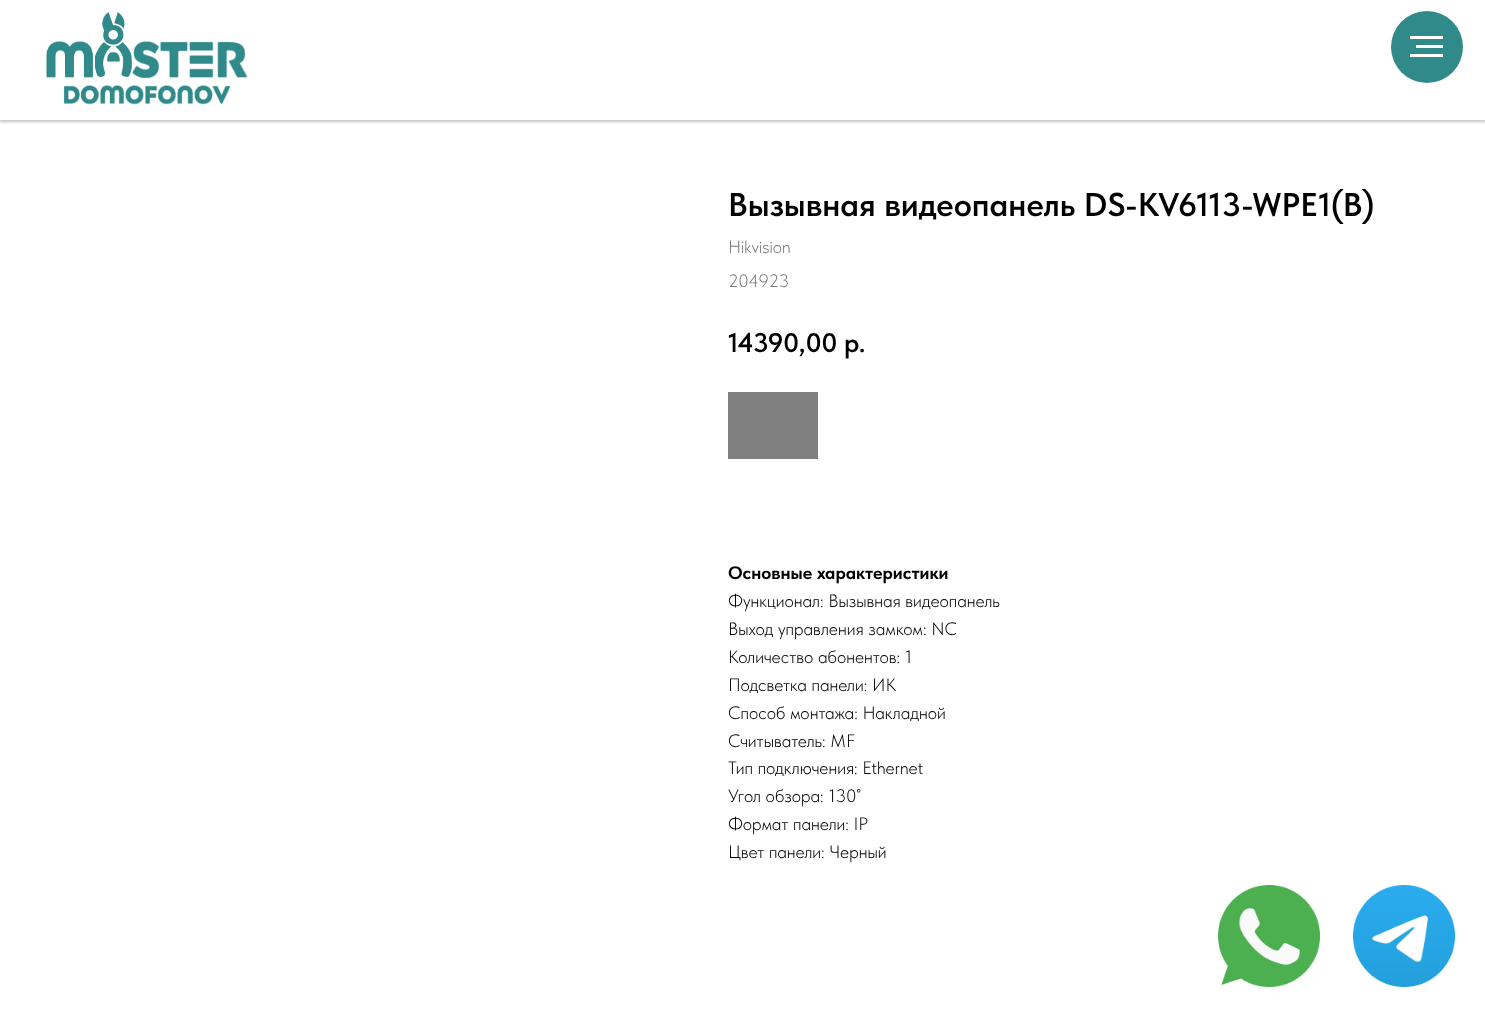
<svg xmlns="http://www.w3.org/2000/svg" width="1485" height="1014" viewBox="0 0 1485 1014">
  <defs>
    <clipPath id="clip1"><rect x="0" y="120" width="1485" height="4"/></clipPath>
    <filter id="blur1" x="-50%" y="-200%" width="200%" height="500%"><feGaussianBlur stdDeviation="1.5"/></filter>
  </defs>
  <rect width="100%" height="100%" fill="#ffffff"/>
  <g clip-path="url(#clip1)">
    <rect x="-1" y="-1" width="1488" height="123" fill="#3e3d3d" fill-opacity="0.3" filter="url(#blur1)"/>
  </g>
  <image x="46" y="29" width="202" height="76" href="img2.png"/>
  <image x="95" y="12" width="37" height="65" href="img1.png"/>
  <circle cx="1427" cy="47" r="36" fill="#308a8a"/>
  <rect x="1410" y="36" width="33" height="3" fill="#ffffff"/>
  <rect x="1416" y="45" width="27" height="3" fill="#ffffff"/>
  <rect x="1410" y="54" width="33" height="3" fill="#ffffff"/>
  <image x="1218" y="885" width="102" height="102" href="img3.png"/>
  <image x="1353" y="885" width="102" height="102" href="img4.png"/>
  <text x="728" y="216" font-family="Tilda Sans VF" font-size="33" font-weight="600" fill="#000000">Вызывная видеопанель DS-KV6113-WPE1(B)</text>
  <text x="728" y="253" font-family="Tilda Sans VF" font-size="18" font-weight="300" fill="#777777">Hikvision</text>
  <text x="728" y="287" font-family="Tilda Sans VF" font-size="18" font-weight="300" fill="#777777">204923</text>
  <text x="728" y="352" font-family="Tilda Sans VF" font-size="27" font-weight="600" fill="#000000">14390,00</text>
  <text x="844" y="352" font-family="Tilda Sans VF" font-size="27" font-weight="600" fill="#000000">р.</text>
  <rect x="728" y="392" width="90" height="67" fill="#808080"/>
  <text x="728" y="579" font-family="Tilda Sans VF" font-size="18" font-weight="bold" fill="#000000">Основные характеристики</text>
  <text x="728" y="607" font-family="Tilda Sans VF" font-size="18" font-weight="300" fill="#000000">Функционал: Вызывная видеопанель</text>
  <text x="728" y="635" font-family="Tilda Sans VF" font-size="18" font-weight="300" fill="#000000">Выход управления замком: NC</text>
  <text x="728" y="663" font-family="Tilda Sans VF" font-size="18" font-weight="300" fill="#000000">Количество абонентов: 1</text>
  <text x="728" y="691" font-family="Tilda Sans VF" font-size="18" font-weight="300" fill="#000000">Подсветка панели: ИК</text>
  <text x="728" y="719" font-family="Tilda Sans VF" font-size="18" font-weight="300" fill="#000000">Способ монтажа: Накладной</text>
  <text x="728" y="747" font-family="Tilda Sans VF" font-size="18" font-weight="300" fill="#000000">Считыватель: MF</text>
  <text x="728" y="774" font-family="Tilda Sans VF" font-size="18" font-weight="300" fill="#000000">Тип подключения: Ethernet</text>
  <text x="728" y="802" font-family="Tilda Sans VF" font-size="18" font-weight="300" fill="#000000">Угол обзора: 130˚</text>
  <text x="728" y="830" font-family="Tilda Sans VF" font-size="18" font-weight="300" fill="#000000">Формат панели: IP</text>
  <text x="728" y="858" font-family="Tilda Sans VF" font-size="18" font-weight="300" fill="#000000">Цвет панели: Черный</text>
</svg>
